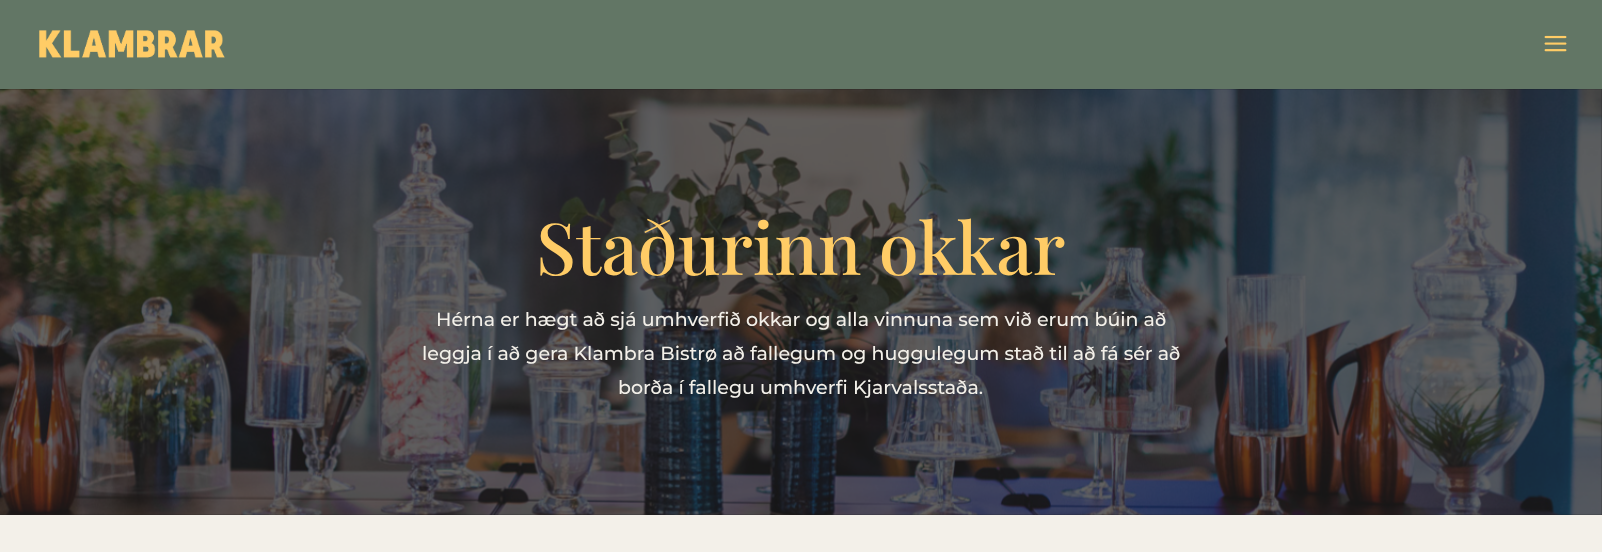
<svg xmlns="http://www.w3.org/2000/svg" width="1602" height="552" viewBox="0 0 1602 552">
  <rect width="100%" height="100%" fill="#1f1f1f"/>
  <image x="0" y="89" width="1602" height="426" href="img3.png"/>
  <rect x="0" y="89" width="1602" height="1" fill="#000000" fill-opacity="0.1"/>
  <rect x="0" y="0" width="1602" height="89" fill="#627665"/>
  <image x="39" y="30" width="186" height="28" href="img1.png"/>
  <image x="1544" y="35" width="23" height="17" href="img2.png"/>
  <text x="536" y="275" font-family="Playfair Display" font-size="72" font-weight="500" fill="#ffcc66">Staðurinn okkar</text>
  <text x="436" y="326" font-family="Montserrat" font-size="19" font-weight="500" fill="#f3f0e9">Hérna er hægt að sjá umhverfið okkar og alla vinnuna sem við erum búin að</text>
  <text x="422" y="360" font-family="Montserrat" font-size="19" font-weight="500" fill="#f3f0e9">leggja í að gera Klambra Bistrø að fallegum og huggulegum stað til að fá sér að</text>
  <text x="618" y="394" font-family="Montserrat" font-size="19" font-weight="500" fill="#f3f0e9">borða í fallegu umhverfi Kjarvalsstaða.</text>
  <rect x="0" y="515" width="1602" height="37" fill="#f3f0e9"/>
</svg>
